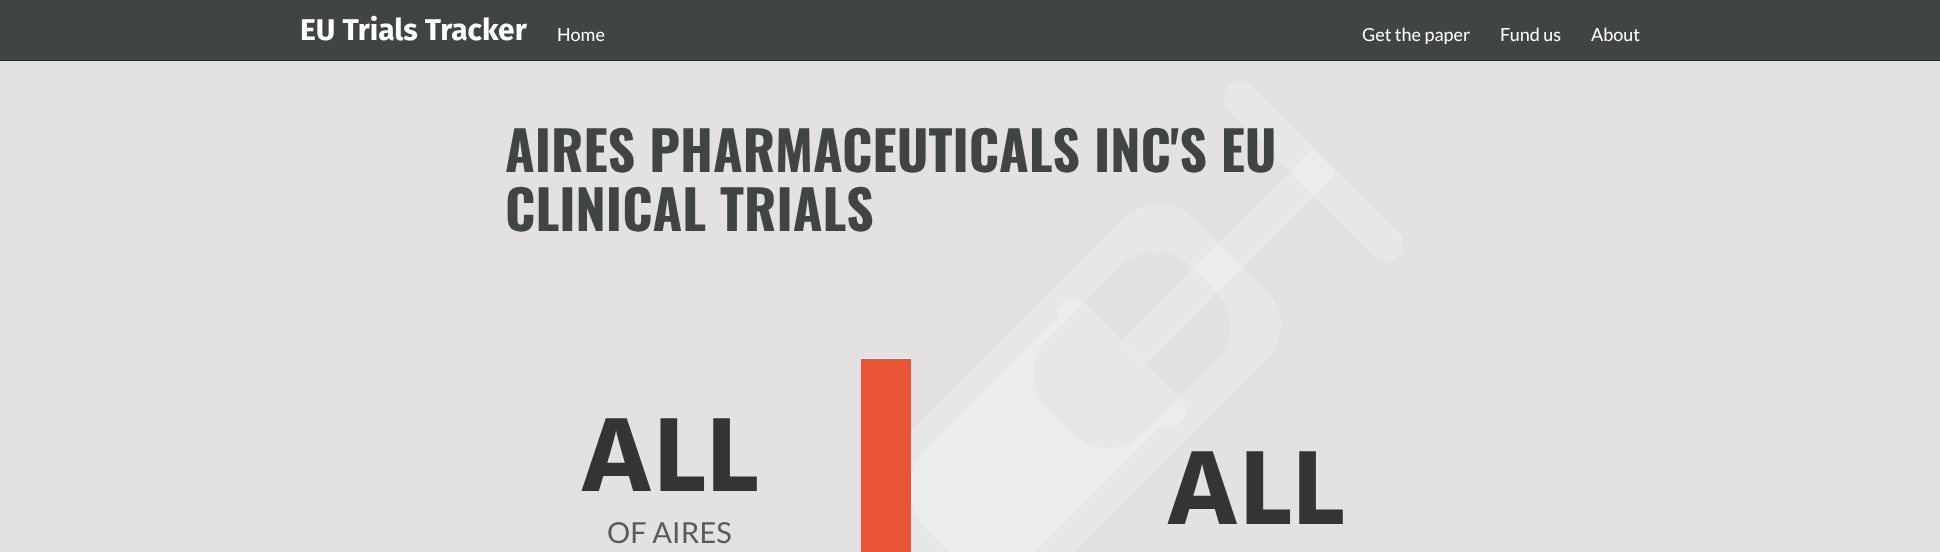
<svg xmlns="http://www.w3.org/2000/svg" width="1940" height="552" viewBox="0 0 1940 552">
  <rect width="100%" height="100%" fill="#e3e1e1"/>
  <rect x="0" y="0" width="1940" height="60" fill="#414445"/>
  <rect x="0" y="60" width="1940" height="1" fill="#282a2b"/>
  <text x="300" y="40" font-family="Fira Sans" font-size="30" font-weight="bold" fill="#ffffff">EU Trials Tracker</text>
  <text x="557" y="41" font-family="Lato" font-size="18" fill="#ffffff">Home</text>
  <text x="1362" y="41" font-family="Lato" font-size="18" fill="#ffffff">Get the paper</text>
  <text x="1500" y="41" font-family="Lato" font-size="18" fill="#ffffff">Fund us</text>
  <text x="1591" y="41" font-family="Lato" font-size="18" fill="#ffffff">About</text>
  <image x="911" y="82" width="492" height="470" href="img1.png"/>
  <text x="505" y="172" font-family="Oswald" font-size="54" font-weight="bold" fill="#414445">AIRES PHARMACEUTICALS INC'S EU</text>
  <text x="505" y="231" font-family="Oswald" font-size="54" font-weight="bold" fill="#414445">CLINICAL TRIALS</text>
  <text x="579" y="491" font-family="Hind" font-size="108" font-weight="bold" fill="#343434">ALL</text>
  <text x="607" y="543" font-family="Lato" font-size="29" fill="#565b5d">OF AIRES</text>
  <rect x="861" y="359" width="50" height="193" fill="#e95436"/>
  <rect x="861" y="358" width="50" height="1" fill="#ffffff"/>
  <text x="1165" y="524" font-family="Hind" font-size="108" font-weight="bold" fill="#343434">ALL</text>
</svg>
